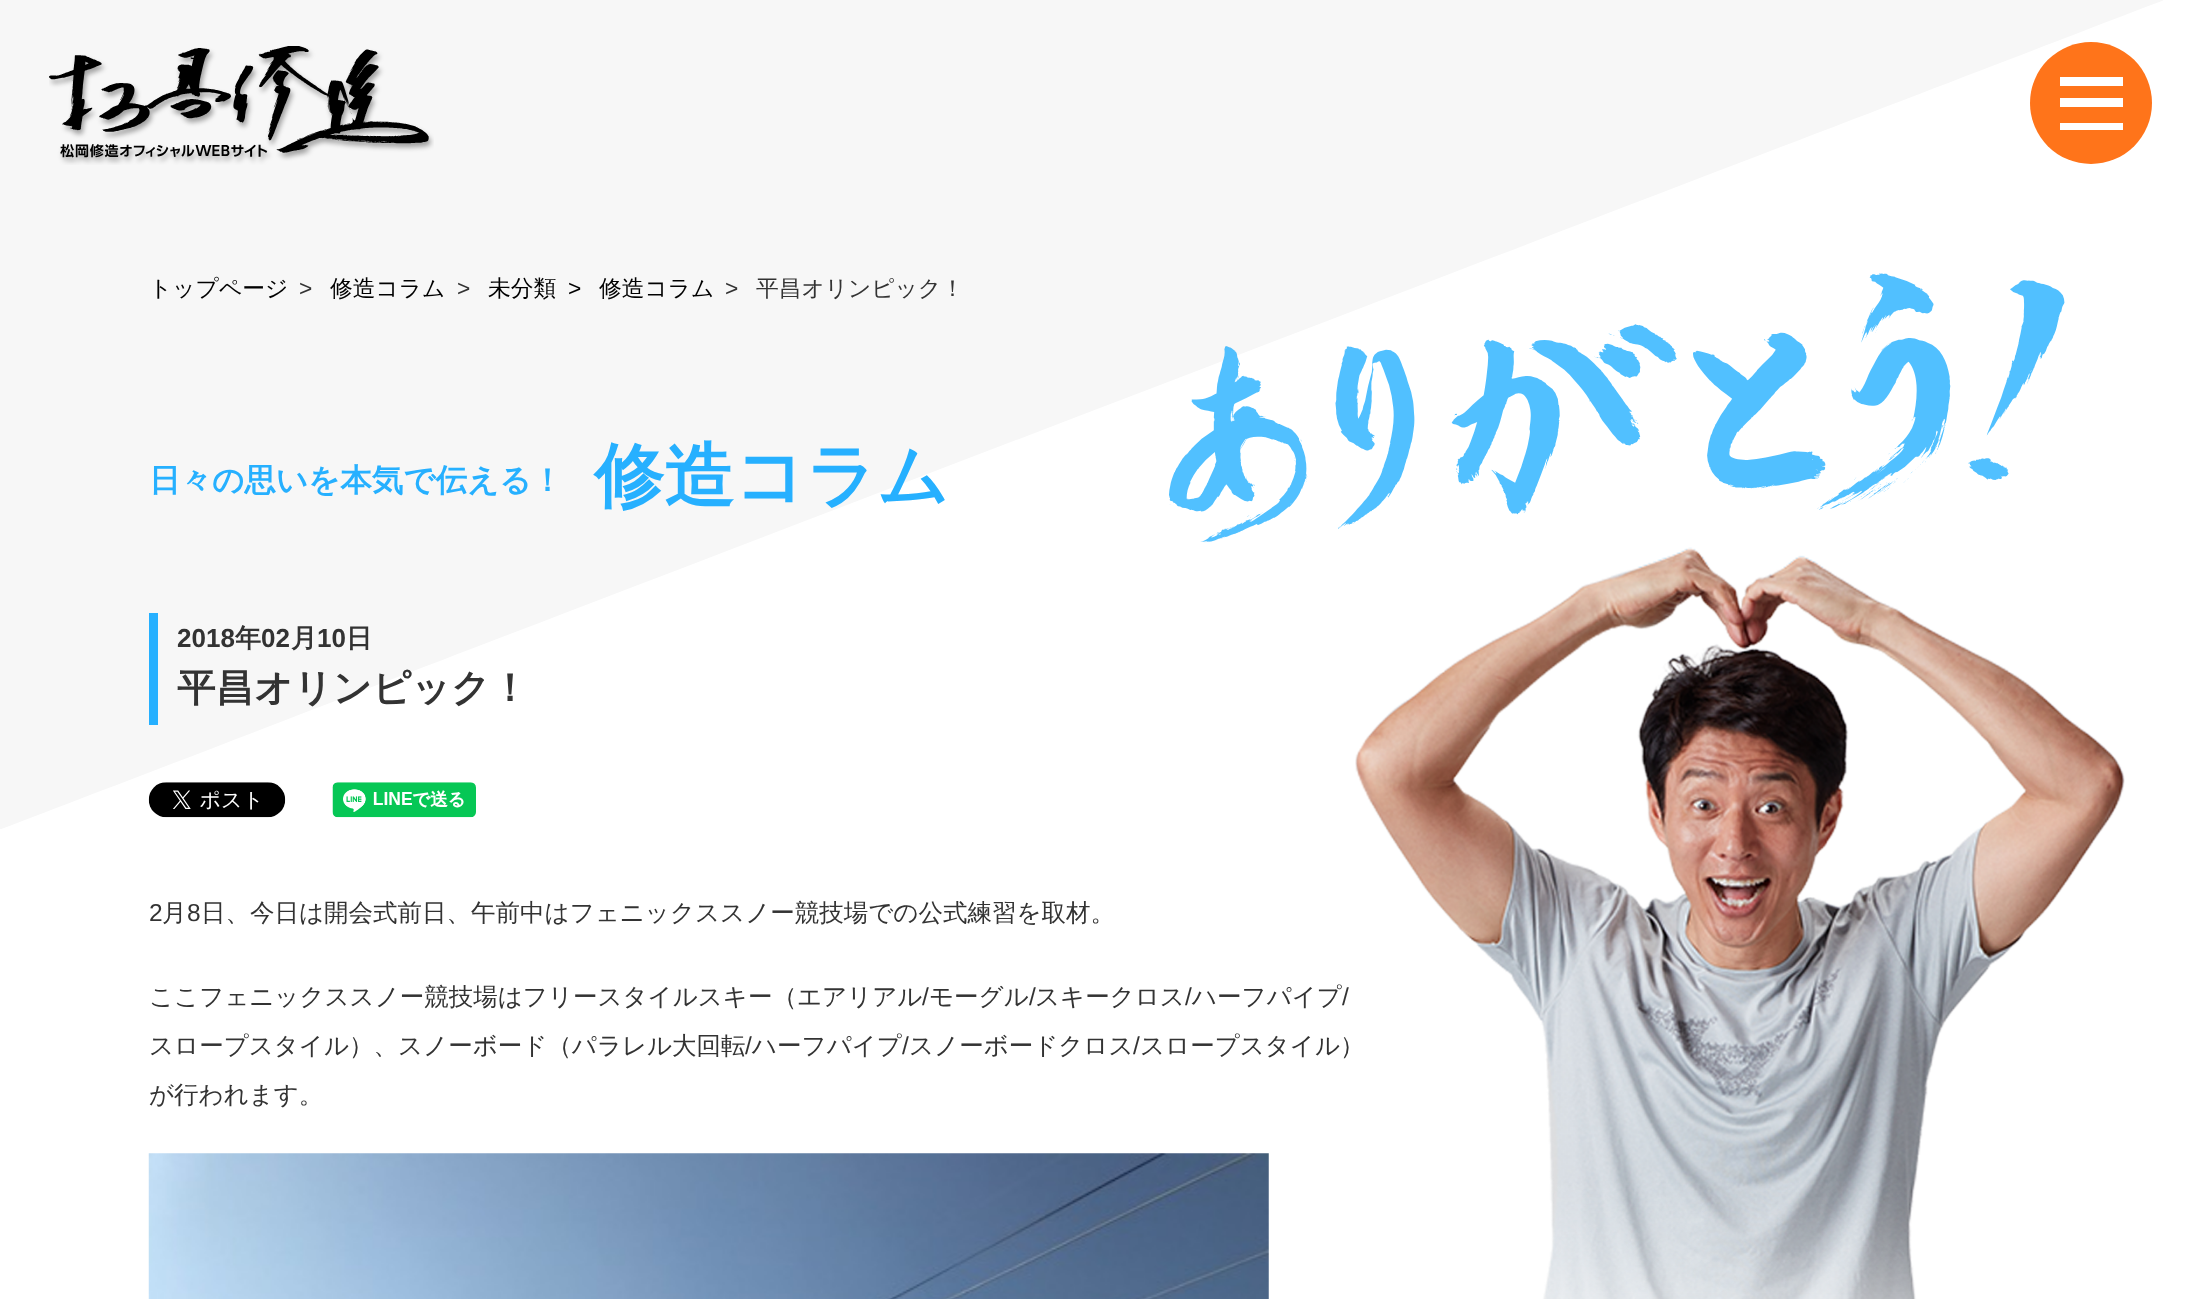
<svg xmlns="http://www.w3.org/2000/svg" width="2187" height="1299" viewBox="0 0 2187 1299">
  <rect width="100%" height="100%" fill="#ffffff"/>
  <image x="0" y="0" width="2163" height="829" href="img1.png"/>
  <image x="49" y="46" width="385" height="119" href="img2.png"/>
  <circle cx="2091" cy="103" r="61" fill="#ff741a"/>
  <rect x="2060" y="77" width="63" height="9" fill="#ffffff"/>
  <rect x="2060" y="98" width="63" height="9" fill="#ffffff"/>
  <rect x="2060" y="123" width="63" height="7" fill="#ffffff"/>
  <text x="149" y="296" font-family="WenQuanYi Zen Hei" font-size="22.75" font-weight="500" fill="#000000">トップページ</text>
  <text x="299" y="296" font-family="Liberation Sans" font-size="22.75" fill="#333333">&gt;</text>
  <text x="330" y="296" font-family="WenQuanYi Zen Hei" font-size="22.75" font-weight="500" fill="#000000">修造コラム</text>
  <text x="457" y="296" font-family="Liberation Sans" font-size="22.75" fill="#333333">&gt;</text>
  <text x="488" y="296" font-family="WenQuanYi Zen Hei" font-size="22.75" font-weight="500" fill="#000000">未分類</text>
  <text x="568" y="296" font-family="Liberation Sans" font-size="22.75" fill="#000000">&gt;</text>
  <text x="599" y="296" font-family="WenQuanYi Zen Hei" font-size="22.75" font-weight="500" fill="#000000">修造コラム</text>
  <text x="725" y="296" font-family="Liberation Sans" font-size="22.75" fill="#333333">&gt;</text>
  <text x="756" y="296" font-family="WenQuanYi Zen Hei" font-size="22.75" font-weight="500" fill="#333333">平昌オリンピック！</text>
  <image x="1169" y="273" width="896" height="270" href="img3.png"/>
  <image x="1355" y="547" width="770" height="752" href="img4.png"/>
  <text x="149" y="491" font-family="WenQuanYi Zen Hei" font-size="31.5" font-weight="bold" fill="#26b0ff">日々の思いを本気で伝える！</text>
  <text x="594" y="500" font-family="WenQuanYi Zen Hei" font-size="70" font-weight="bold" fill="#26b0ff">修造コラム</text>
  <rect x="149" y="613" width="9" height="112" fill="#26b0ff"/>
  <text x="177" y="647" font-family="Liberation Sans" font-size="26" font-weight="bold" fill="#333333">2018</text>
  <text x="235" y="647" font-family="WenQuanYi Zen Hei" font-size="26" font-weight="bold" fill="#333333">年</text>
  <text x="261" y="647" font-family="Liberation Sans" font-size="26" font-weight="bold" fill="#333333">02</text>
  <text x="291" y="647" font-family="WenQuanYi Zen Hei" font-size="26" font-weight="bold" fill="#333333">月</text>
  <text x="317" y="647" font-family="Liberation Sans" font-size="26" font-weight="bold" fill="#333333">10</text>
  <text x="346" y="647" font-family="WenQuanYi Zen Hei" font-size="26" font-weight="bold" fill="#333333">日</text>
  <text x="177" y="701" font-family="WenQuanYi Zen Hei" font-size="38.5" font-weight="bold" fill="#333333">平昌オリンピック！</text>
  <image x="148" y="782" width="138" height="36" href="img5.png"/>
  <image x="332" y="782" width="144" height="36" href="img6.png"/>
  <text x="149" y="921" font-family="Liberation Sans" font-size="24.5" fill="#333333">2</text>
  <text x="162" y="921" font-family="WenQuanYi Zen Hei" font-size="24.5" font-weight="500" fill="#333333">月</text>
  <text x="187" y="921" font-family="Liberation Sans" font-size="24.5" fill="#333333">8</text>
  <text x="201" y="921" font-family="WenQuanYi Zen Hei" font-size="24.5" font-weight="500" fill="#333333">日、今日は開会式前日、午前中はフェニックススノー競技場での公式練習を取材。</text>
  <text x="149" y="1005" font-family="WenQuanYi Zen Hei" font-size="24.5" font-weight="500" fill="#333333">ここフェニックススノー競技場はフリースタイルスキー（エアリアル</text>
  <text x="922" y="1005" font-family="Liberation Sans" font-size="24.5" fill="#333333">/</text>
  <text x="929" y="1005" font-family="WenQuanYi Zen Hei" font-size="24.5" font-weight="500" fill="#333333">モーグル</text>
  <text x="1029" y="1005" font-family="Liberation Sans" font-size="24.5" fill="#333333">/</text>
  <text x="1035" y="1005" font-family="WenQuanYi Zen Hei" font-size="24.5" font-weight="500" fill="#333333">スキークロス</text>
  <text x="1185" y="1005" font-family="Liberation Sans" font-size="24.5" fill="#333333">/</text>
  <text x="1192" y="1005" font-family="WenQuanYi Zen Hei" font-size="24.5" font-weight="500" fill="#333333">ハーフパイプ</text>
  <text x="1342" y="1005" font-family="Liberation Sans" font-size="24.5" fill="#333333">/</text>
  <text x="149" y="1054" font-family="WenQuanYi Zen Hei" font-size="24.5" font-weight="500" fill="#333333">スロープスタイル）、スノーボード（パラレル大回転</text>
  <text x="745" y="1054" font-family="Liberation Sans" font-size="24.5" fill="#333333">/</text>
  <text x="752" y="1054" font-family="WenQuanYi Zen Hei" font-size="24.5" font-weight="500" fill="#333333">ハーフパイプ</text>
  <text x="902" y="1054" font-family="Liberation Sans" font-size="24.5" fill="#333333">/</text>
  <text x="909" y="1054" font-family="WenQuanYi Zen Hei" font-size="24.5" font-weight="500" fill="#333333">スノーボードクロス</text>
  <text x="1133" y="1054" font-family="Liberation Sans" font-size="24.5" fill="#333333">/</text>
  <text x="1140" y="1054" font-family="WenQuanYi Zen Hei" font-size="24.5" font-weight="500" fill="#333333">スロープスタイル）</text>
  <text x="149" y="1103" font-family="WenQuanYi Zen Hei" font-size="24.5" font-weight="500" fill="#333333">が行われます。</text>
  <image x="148" y="1153" width="1121" height="146" href="img7.png"/>
</svg>
